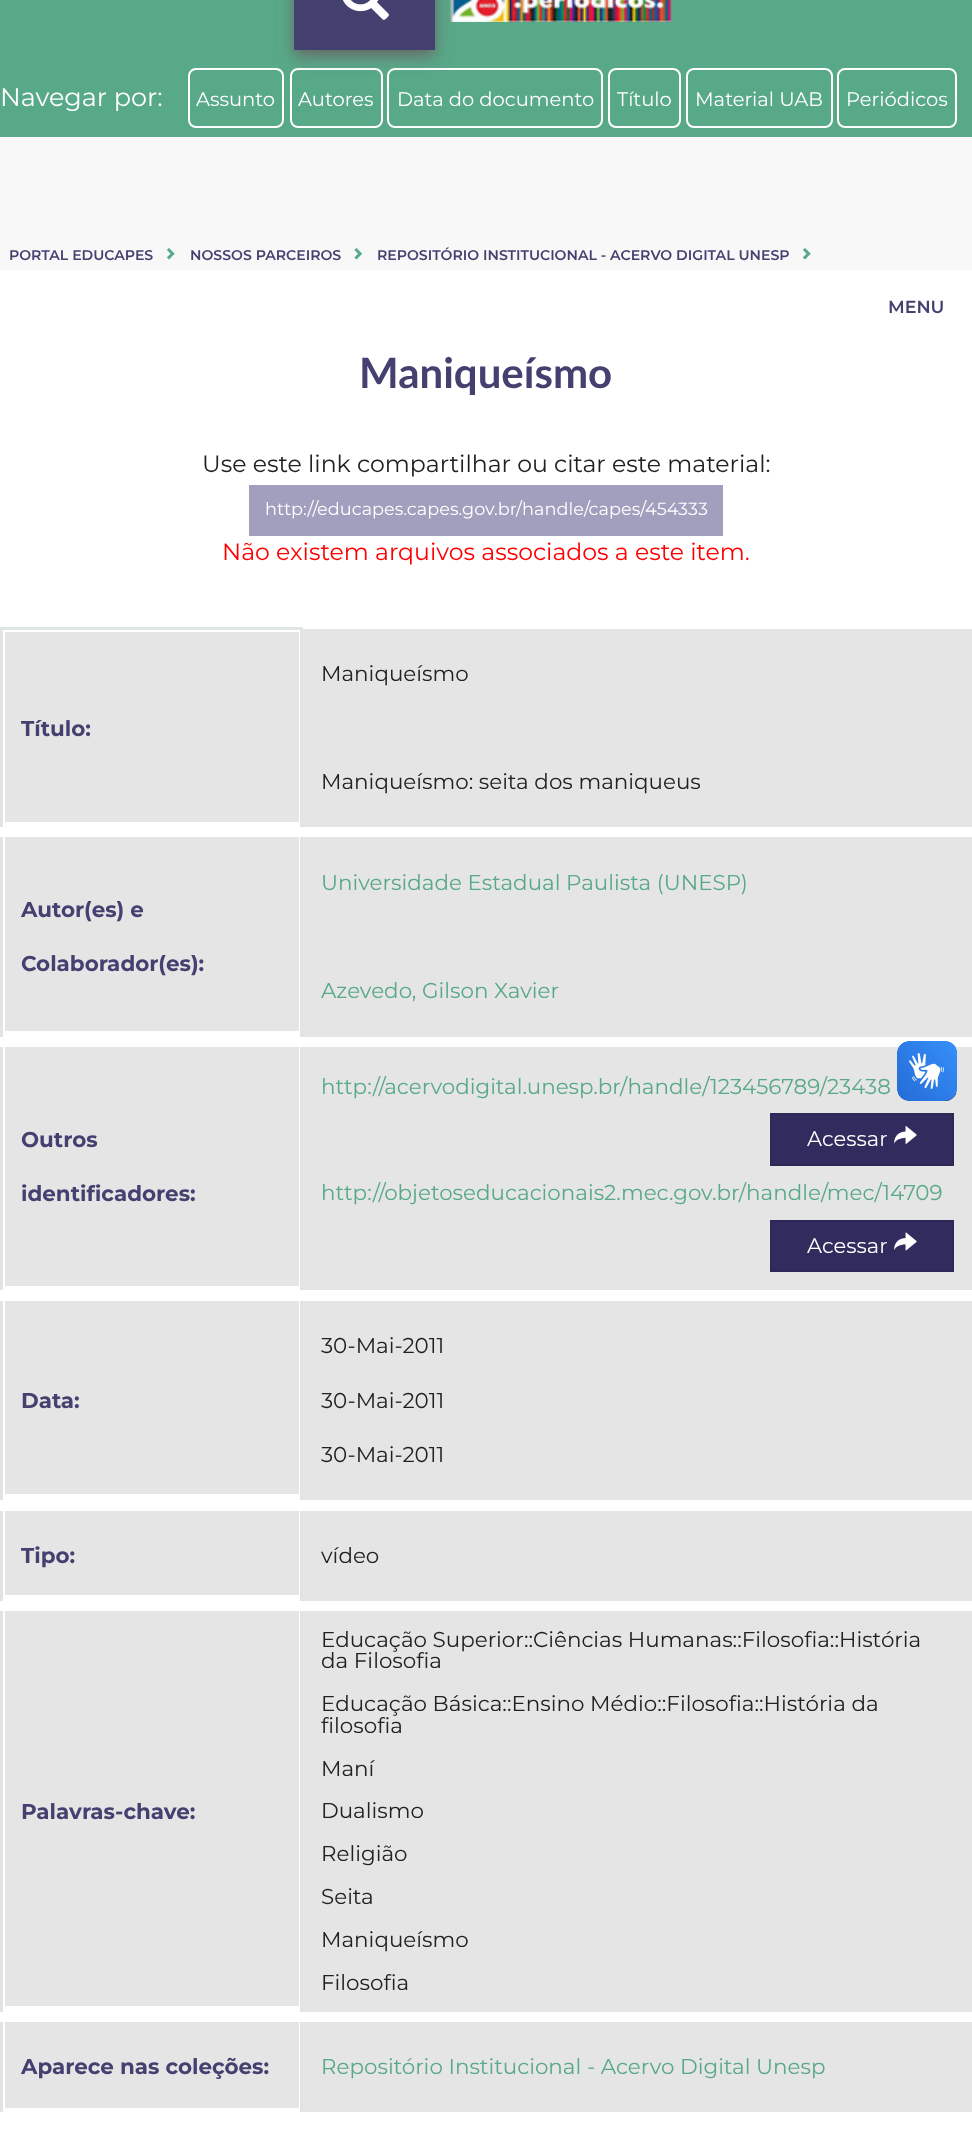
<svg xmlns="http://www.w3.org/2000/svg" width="972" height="2142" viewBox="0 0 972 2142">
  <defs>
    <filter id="blur1" x="-50%" y="-200%" width="200%" height="500%"><feGaussianBlur stdDeviation="8"/></filter>
  </defs>
  <rect width="100%" height="100%" fill="#f8f8f8"/>
  <rect x="0" y="0" width="972" height="137" fill="#58a988"/>
  <rect x="189" y="69" width="94" height="58" rx="7" fill="none" stroke="#ffffff" stroke-width="2"/>
  <rect x="291" y="69" width="91" height="58" rx="7" fill="none" stroke="#ffffff" stroke-width="2"/>
  <rect x="388" y="69" width="214" height="58" rx="7" fill="none" stroke="#ffffff" stroke-width="2"/>
  <rect x="294" y="-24" width="141" height="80" fill="#666666" filter="url(#blur1)"/>
  <rect x="294" y="0" width="141" height="50" fill="#444070"/>
  <image x="342" y="0" width="47" height="20" href="img1.png"/>
  <image x="450" y="0" width="222" height="22" href="img2.png"/>
  <text x="0" y="106" font-family="Montserrat" font-size="25.5" fill="#ffffff">Navegar por:</text>
  <text x="196" y="106" font-family="Montserrat" font-size="19.5" fill="#ffffff">Assunto</text>
  <text x="298" y="106" font-family="Montserrat" font-size="19.5" fill="#ffffff">Autores</text>
  <text x="397" y="106" font-family="Montserrat" font-size="19.5" fill="#ffffff">Data do documento</text>
  <rect x="609" y="69" width="71" height="58" rx="7" fill="none" stroke="#ffffff" stroke-width="2"/>
  <text x="617" y="106" font-family="Montserrat" font-size="19.5" fill="#ffffff">Título</text>
  <rect x="687" y="69" width="145" height="58" rx="7" fill="none" stroke="#ffffff" stroke-width="2"/>
  <text x="695" y="106" font-family="Montserrat" font-size="19.5" fill="#ffffff">Material UAB</text>
  <rect x="838" y="69" width="118" height="58" rx="7" fill="none" stroke="#ffffff" stroke-width="2"/>
  <text x="846" y="106" font-family="Montserrat" font-size="19.5" fill="#ffffff">Periódicos</text>
  <text x="9" y="260" font-family="Montserrat" font-size="14.1" font-weight="600" fill="#444070">PORTAL EDUCAPES</text>
  <image x="166" y="248" width="9" height="12" href="img3.png"/>
  <text x="190" y="260" font-family="Montserrat" font-size="14.1" font-weight="600" fill="#444070">NOSSOS PARCEIROS</text>
  <image x="354" y="248" width="9" height="12" href="img4.png"/>
  <text x="377" y="260" font-family="Montserrat" font-size="14.1" font-weight="600" fill="#444070">REPOSITÓRIO INSTITUCIONAL - ACERVO DIGITAL UNESP</text>
  <image x="802" y="248" width="9" height="12" href="img3.png"/>
  <rect x="0" y="270" width="972" height="1872" fill="#ffffff"/>
  <text x="359" y="388" font-family="Lato" font-size="42" font-weight="bold" fill="#444070">Maniqueísmo</text>
  <text x="202" y="472" font-family="Montserrat" font-size="23.6" fill="#212121">Use este link compartilhar ou citar este material:</text>
  <rect x="249" y="485" width="474" height="51" fill="#a29fbe"/>
  <text x="265" y="515" font-family="Montserrat" font-size="17.7" fill="#ffffff">http://educapes.capes.gov.br/handle/capes/454333</text>
  <text x="222" y="560" font-family="Montserrat" font-size="23.6" fill="#ff0000">Não existem arquivos associados a este item.</text>
  <rect x="5" y="632" width="294" height="190" fill="#e5e5e5"/>
  <rect x="0" y="627" width="303" height="3" fill="#dfe5e5"/>
  <rect x="300" y="831" width="3" height="1289" fill="#dfe5e5"/>
  <rect x="300" y="627" width="3" height="207" fill="#dfe5e5"/>
  <rect x="0" y="831" width="3" height="1289" fill="#dfe5e5"/>
  <rect x="0" y="627" width="3" height="207" fill="#dfe5e5"/>
  <rect x="0" y="827" width="303" height="10" fill="#ffffff"/>
  <text x="21" y="736" font-family="Montserrat" font-size="21.45" font-weight="bold" fill="#444070">Título:</text>
  <rect x="303" y="629" width="669" height="198" fill="#e5e5e5"/>
  <text x="321" y="681" font-family="Montserrat" font-size="21.45" fill="#212121">Maniqueísmo</text>
  <text x="321" y="789" font-family="Montserrat" font-size="21.45" fill="#212121">Maniqueísmo: seita dos maniqueus</text>
  <rect x="5" y="837" width="294" height="194" fill="#e5e5e5"/>
  <rect x="0" y="1037" width="303" height="10" fill="#ffffff"/>
  <text x="21" y="917" font-family="Montserrat" font-size="21.45" font-weight="bold" fill="#444070">Autor(es) e</text>
  <text x="21" y="971" font-family="Montserrat" font-size="21.45" font-weight="bold" fill="#444070">Colaborador(es):</text>
  <rect x="303" y="837" width="669" height="200" fill="#e5e5e5"/>
  <text x="321" y="890" font-family="Montserrat" font-size="21.45" fill="#58a987">Universidade Estadual Paulista (UNESP)</text>
  <text x="321" y="998" font-family="Montserrat" font-size="21.45" fill="#58a987">Azevedo, Gilson Xavier</text>
  <rect x="5" y="1047" width="294" height="239" fill="#e5e5e5"/>
  <rect x="0" y="1290" width="303" height="11" fill="#ffffff"/>
  <text x="21" y="1147" font-family="Montserrat" font-size="21.45" font-weight="bold" fill="#444070">Outros</text>
  <text x="21" y="1201" font-family="Montserrat" font-size="21.45" font-weight="bold" fill="#444070">identificadores:</text>
  <rect x="303" y="1047" width="669" height="243" fill="#e5e5e5"/>
  <text x="321" y="1094" font-family="Montserrat" font-size="21.45" fill="#58a987">http://acervodigital.unesp.br/handle/123456789/23438</text>
  <rect x="771" y="1114" width="182" height="51" fill="#312c5d" stroke="#2d2956" stroke-width="2"/>
  <text x="807" y="1146" font-family="Montserrat" font-size="21" fill="#ffffff">Acessar</text>
  <image x="894" y="1126" width="23" height="18" href="img5.png"/>
  <text x="321" y="1200" font-family="Montserrat" font-size="21.45" fill="#58a987">http://objetoseducacionais2.mec.gov.br/handle/mec/14709</text>
  <rect x="771" y="1221" width="182" height="50" fill="#312c5d" stroke="#2d2956" stroke-width="2"/>
  <text x="807" y="1253" font-family="Montserrat" font-size="21" fill="#ffffff">Acessar</text>
  <image x="894" y="1232" width="23" height="19" href="img6.png"/>
  <rect x="5" y="1301" width="294" height="193" fill="#e5e5e5"/>
  <rect x="0" y="1500" width="303" height="11" fill="#ffffff"/>
  <text x="21" y="1408" font-family="Montserrat" font-size="21.45" font-weight="bold" fill="#444070">Data:</text>
  <rect x="303" y="1301" width="669" height="199" fill="#e5e5e5"/>
  <text x="321" y="1353" font-family="Montserrat" font-size="21.45" fill="#212121">30-Mai-2011</text>
  <text x="321" y="1408" font-family="Montserrat" font-size="21.45" fill="#212121">30-Mai-2011</text>
  <text x="321" y="1462" font-family="Montserrat" font-size="21.45" fill="#212121">30-Mai-2011</text>
  <rect x="5" y="1511" width="294" height="84" fill="#e5e5e5"/>
  <rect x="0" y="1601" width="303" height="10" fill="#ffffff"/>
  <text x="21" y="1563" font-family="Montserrat" font-size="21.45" font-weight="bold" fill="#444070">Tipo:</text>
  <rect x="303" y="1511" width="669" height="90" fill="#e5e5e5"/>
  <text x="321" y="1563" font-family="Montserrat" font-size="21.45" fill="#212121">vídeo</text>
  <rect x="5" y="1611" width="294" height="395" fill="#e5e5e5"/>
  <rect x="0" y="2012" width="303" height="10" fill="#ffffff"/>
  <text x="21" y="1819" font-family="Montserrat" font-size="21.45" font-weight="bold" fill="#444070">Palavras-chave:</text>
  <rect x="303" y="1611" width="669" height="401" fill="#e5e5e5"/>
  <text x="321" y="1647" font-family="Montserrat" font-size="21.45" fill="#212121">Educação Superior::Ciências Humanas::Filosofia::História</text>
  <text x="321" y="1668" font-family="Montserrat" font-size="21.45" fill="#212121">da Filosofia</text>
  <text x="321" y="1711" font-family="Montserrat" font-size="21.45" fill="#212121">Educação Básica::Ensino Médio::Filosofia::História da</text>
  <text x="321" y="1733" font-family="Montserrat" font-size="21.45" fill="#212121">filosofia</text>
  <text x="321" y="1776" font-family="Montserrat" font-size="21.45" fill="#212121">Maní</text>
  <text x="321" y="1818" font-family="Montserrat" font-size="21.45" fill="#212121">Dualismo</text>
  <text x="321" y="1861" font-family="Montserrat" font-size="21.45" fill="#212121">Religião</text>
  <text x="321" y="1904" font-family="Montserrat" font-size="21.45" fill="#212121">Seita</text>
  <text x="321" y="1947" font-family="Montserrat" font-size="21.45" fill="#212121">Maniqueísmo</text>
  <text x="321" y="1990" font-family="Montserrat" font-size="21.45" fill="#212121">Filosofia</text>
  <rect x="5" y="2022" width="294" height="86" fill="#e5e5e5"/>
  <rect x="0" y="2112" width="303" height="8" fill="#ffffff"/>
  <text x="21" y="2074" font-family="Montserrat" font-size="21.45" font-weight="bold" fill="#444070">Aparece nas coleções:</text>
  <rect x="303" y="2022" width="669" height="90" fill="#e5e5e5"/>
  <text x="321" y="2074" font-family="Montserrat" font-size="21.45" fill="#58a987">Repositório Institucional - Acervo Digital Unesp</text>
  <text x="888" y="313" font-family="Montserrat" font-size="17.5" font-weight="600" fill="#444070">MENU</text>
  <image x="897" y="1041" width="60" height="60" href="img7.png"/>
  <image x="897" y="1041" width="60" height="60" href="img8.png"/>
</svg>
